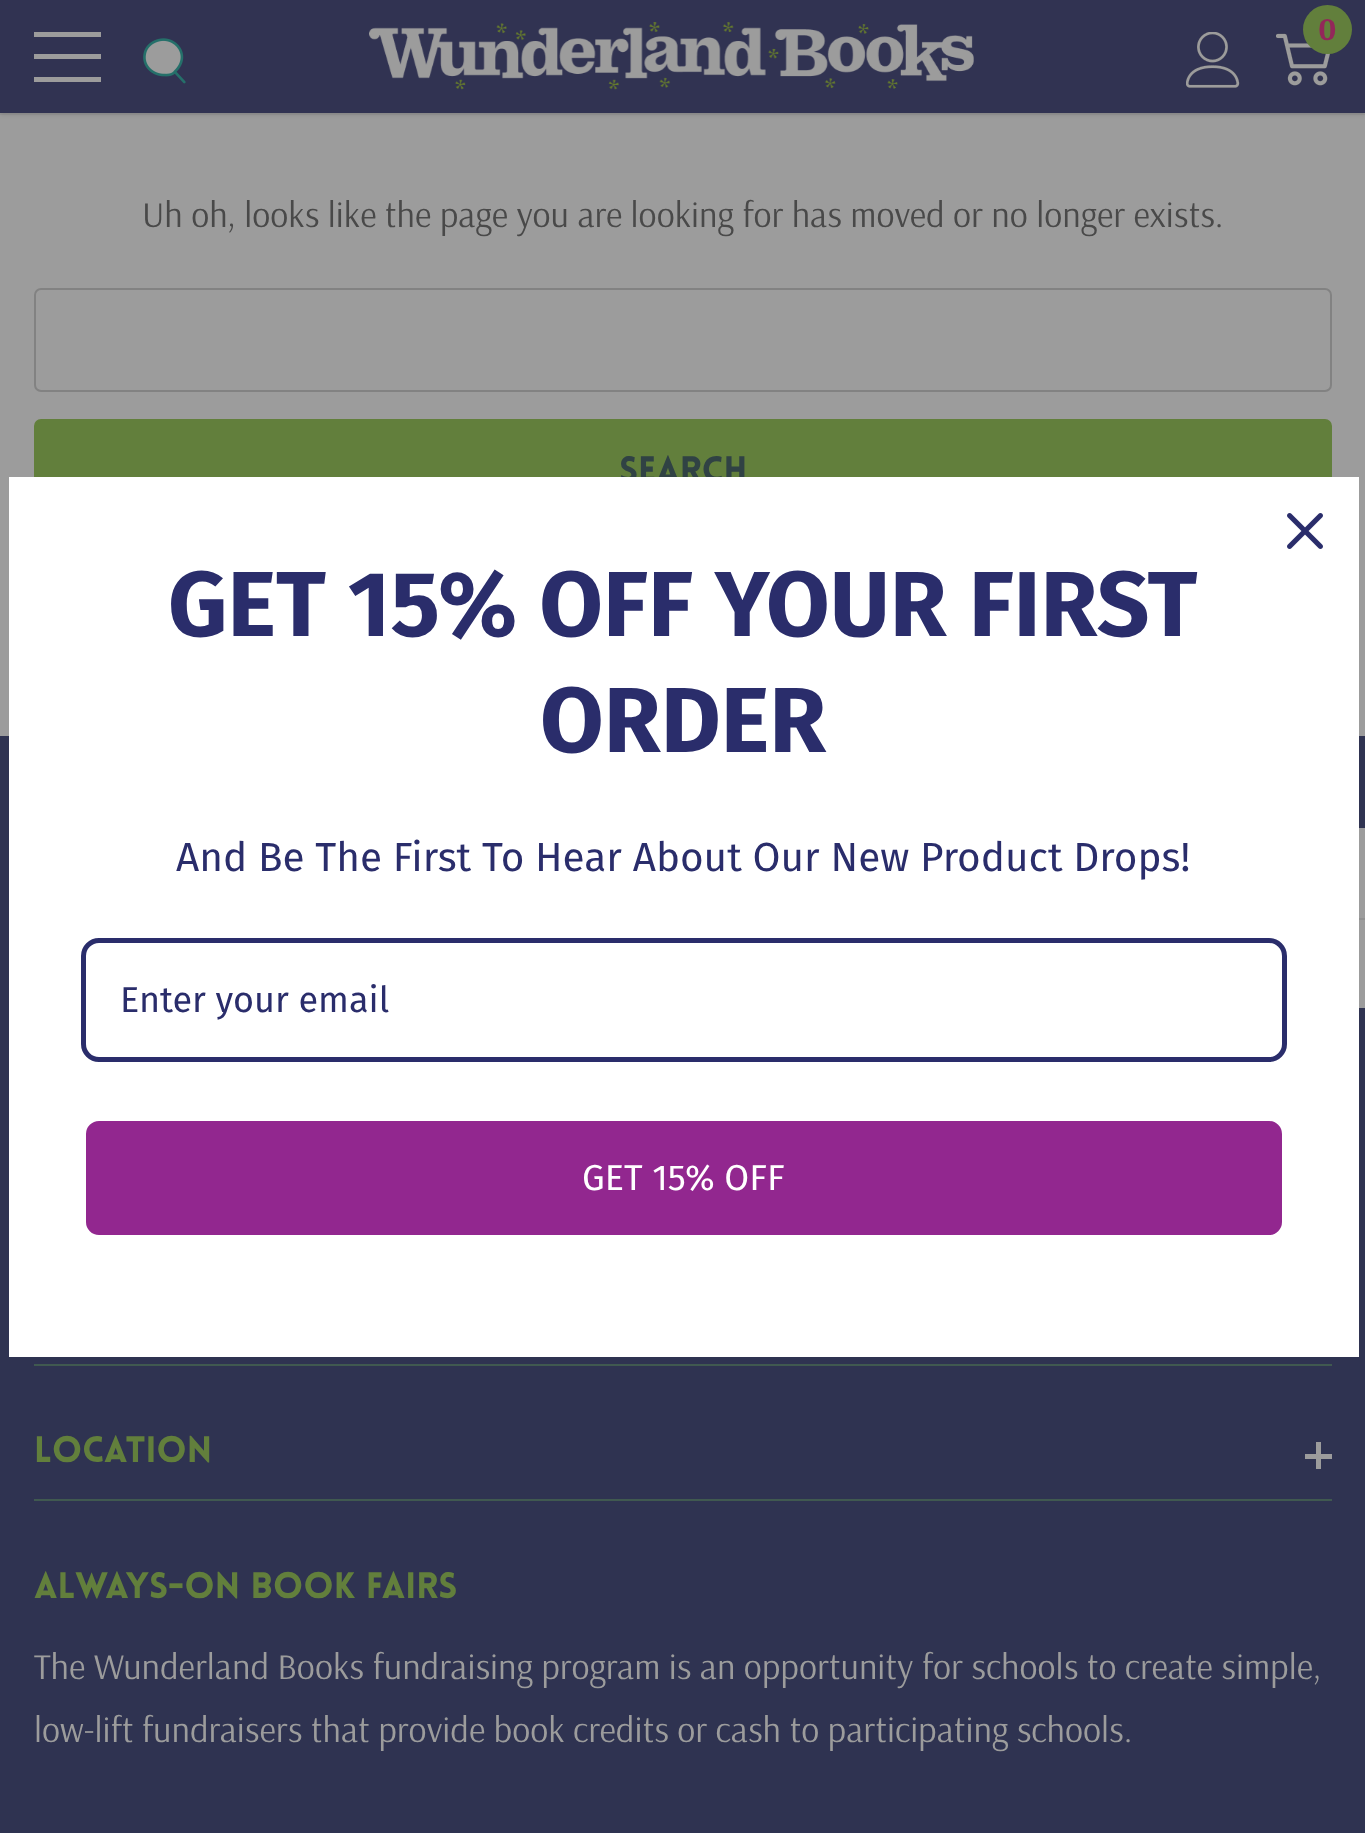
<svg xmlns="http://www.w3.org/2000/svg" width="1365" height="1833" viewBox="0 0 1365 1833">
  <defs>
    <filter id="blur1" x="-50%" y="-200%" width="200%" height="500%"><feGaussianBlur stdDeviation="2"/></filter>
  </defs>
  <rect width="100%" height="100%" fill="#9c9c9c"/>
  <rect x="0" y="2" width="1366" height="113" fill="#1c1c1c" fill-opacity="0.1" filter="url(#blur1)"/>
  <rect x="-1" y="-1" width="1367" height="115" fill="none" stroke="#1c1c1c" stroke-opacity="0.06" stroke-width="2"/>
  <rect x="0" y="0" width="1365" height="113" fill="#313352"/>
  <rect x="34" y="54" width="67" height="5" fill="#9c9c9c"/>
  <rect x="34" y="32" width="67" height="5" fill="#9c9c9c"/>
  <rect x="34" y="77" width="67" height="5" fill="#9c9c9c"/>
  <image x="143" y="38" width="43" height="46" href="img1.png"/>
  <image x="369" y="22" width="605" height="68" href="img2.png"/>
  <image x="1186" y="32" width="54" height="56" href="img3.png"/>
  <image x="1276" y="33" width="55" height="53" href="img4.png"/>
  <circle cx="1327.5" cy="29.5" r="24.5" fill="#627f3c"/>
  <text x="1318" y="40" font-family="Arsenal" font-size="32" font-weight="bold" fill="#93275a">0</text>
  <text x="142" y="227" font-family="Arsenal" font-size="36" fill="#494949">Uh oh, looks like the page you are looking for has moved or no longer exists.</text>
  <rect x="35" y="289" width="1296" height="102" rx="6" fill="none" stroke="#828282" stroke-width="2"/>
  <rect x="35" y="420" width="1296" height="106" rx="6" fill="#627f3c" stroke="#627f3c" stroke-width="2"/>
  <text x="619" y="482" font-family="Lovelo" font-size="36" font-weight="900" fill="#304244">Search</text>
  <rect x="0" y="736" width="1365" height="1097" fill="#2f3351"/>
  <rect x="9" y="477" width="1350" height="880" fill="#ffffff"/>
  <image x="1287" y="513" width="36" height="36" href="img5.png"/>
  <text x="168" y="636" font-family="Fira Sans" font-size="92.25" font-weight="bold" fill="#2a2d6b">GET 15% OFF YOUR FIRST</text>
  <text x="540" y="752" font-family="Fira Sans" font-size="92.25" font-weight="bold" fill="#2a2d6b">ORDER</text>
  <text x="176" y="871" font-family="Fira Sans" font-size="40.5" fill="#2a2d6b">And Be The First To Hear About Our New Product Drops!</text>
  <rect x="83.5" y="940.5" width="1201" height="119" rx="15.5" fill="none" stroke="#2a2d6b" stroke-width="5"/>
  <text x="120" y="1012" font-family="Fira Sans" font-size="36" fill="#2a2d6b">Enter your email</text>
  <rect x="83.5" y="1118.5" width="1201" height="119" rx="15.5" fill="#92278f" stroke="#ffffff" stroke-width="5"/>
  <text x="582" y="1190" font-family="Fira Sans" font-size="36" fill="#ffffff">GET 15% OFF</text>
  <rect x="1359" y="828" width="6" height="180" fill="#9c9c9c"/>
  <rect x="1359" y="918" width="6" height="2" fill="#909090"/>
  <rect x="34" y="1364" width="1298" height="2" fill="#405950"/>
  <rect x="34" y="1499" width="1298" height="2" fill="#405950"/>
  <text x="34" y="1462" font-family="Lovelo" font-size="36" font-weight="900" fill="#627f3c">Location</text>
  <rect x="1316" y="1442" width="5" height="27" fill="#9c9c9c"/>
  <rect x="1305" y="1454" width="27" height="5" fill="#9c9c9c"/>
  <text x="34" y="1598" font-family="Lovelo" font-size="36" font-weight="900" fill="#627f3c">Always-On Book Fairs</text>
  <text x="34" y="1679" font-family="Arsenal" font-size="36" fill="#9c9c9c">The Wunderland Books fundraising program is an opportunity for schools to create simple,</text>
  <text x="34" y="1742" font-family="Arsenal" font-size="36" fill="#9c9c9c">low-lift fundraisers that provide book credits or cash to participating schools.</text>
</svg>
